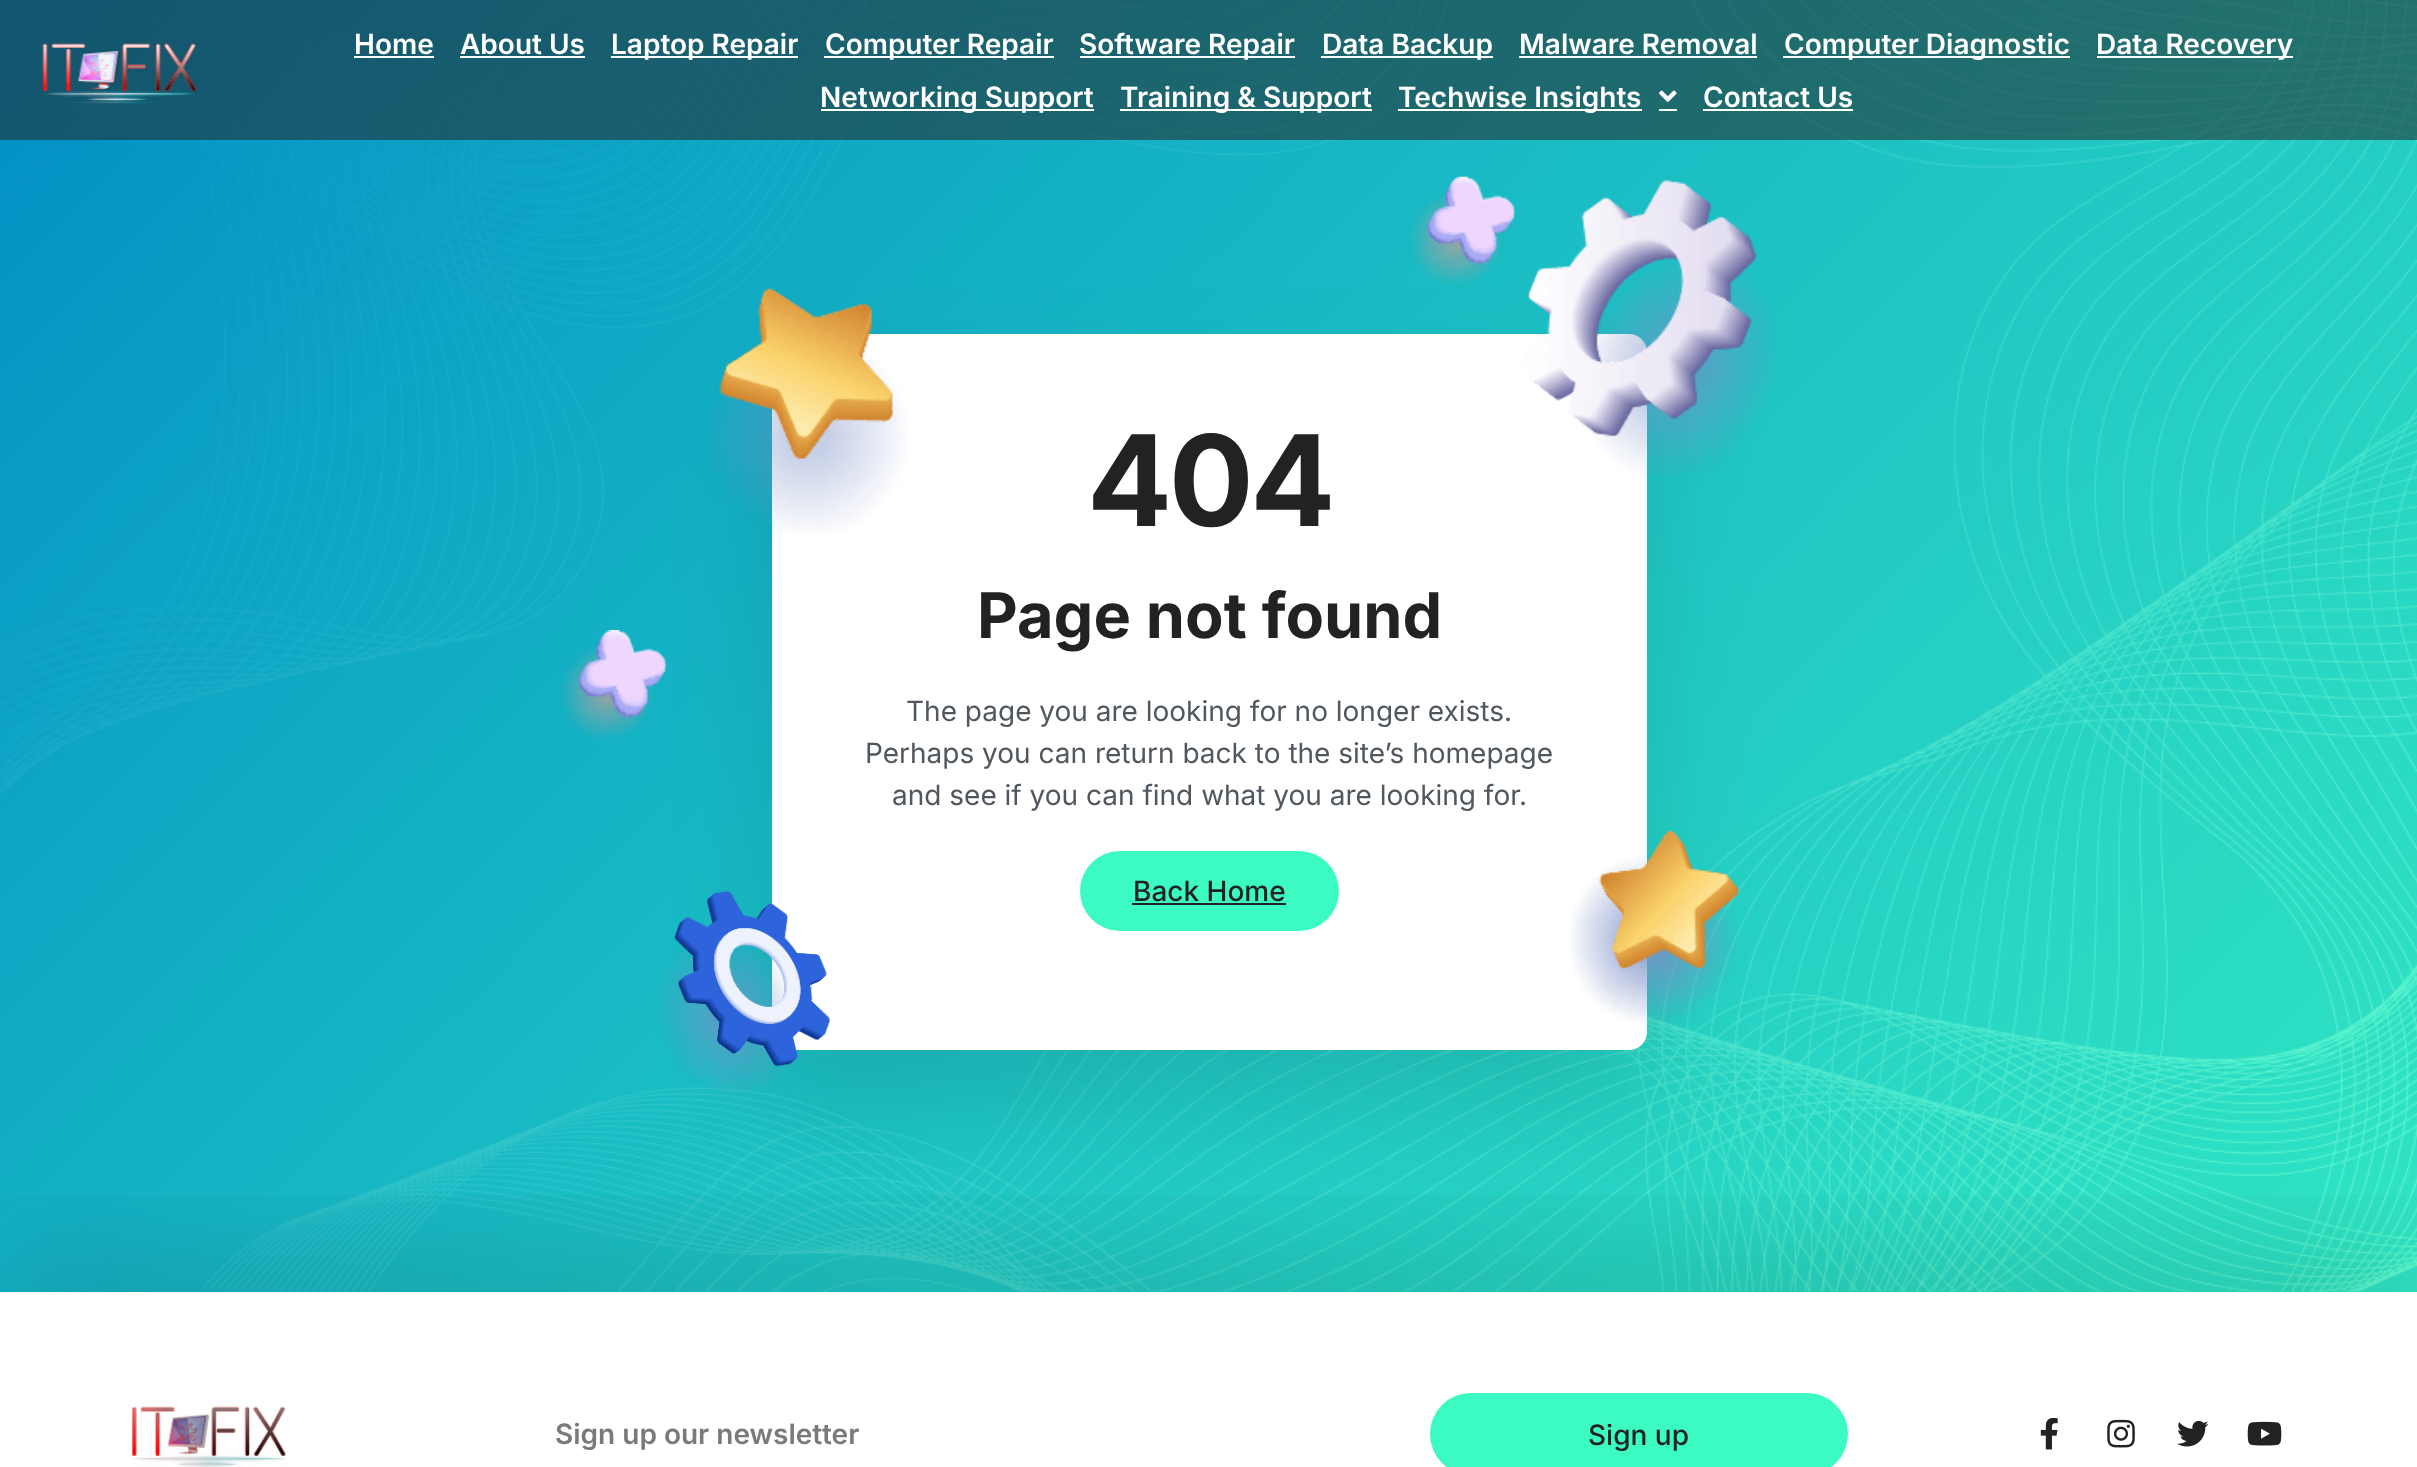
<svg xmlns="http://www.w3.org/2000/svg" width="2417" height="1467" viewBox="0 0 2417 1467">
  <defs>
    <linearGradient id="g1" gradientUnits="userSpaceOnUse" x1="256" y1="-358" x2="2162" y2="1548"><stop offset="0" stop-color="#008bc5"/><stop offset="1" stop-color="#3bfbc3" stop-opacity="0.8"/></linearGradient>
    <filter id="blur1" x="-50%" y="-200%" width="200%" height="500%"><feGaussianBlur stdDeviation="52.5"/></filter>
    <clipPath id="clip1"><rect x="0" y="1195" width="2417" height="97"/></clipPath>
  </defs>
  <rect width="100%" height="100%" fill="#ffffff"/>
  <rect x="0" y="0" width="2417" height="1292" fill="#008bc5"/>
  <image x="0" y="0" width="2417" height="1292" href="img3.png"/>
  <rect x="0" y="0" width="2417" height="1292" fill="url(#g1)"/>
  <rect x="0" y="0" width="2417" height="140" fill="#222222" fill-opacity="0.53"/>
  <image x="42" y="43" width="155" height="61" href="img1.png"/>
  <text x="354" y="54" font-family="Inter" font-size="28" font-weight="600" fill="#ffffff">Home</text>
  <rect x="354" y="56" width="80" height="2" fill="#ffffff"/>
  <text x="460" y="54" font-family="Inter" font-size="28" font-weight="600" fill="#ffffff">About Us</text>
  <rect x="460" y="56" width="125" height="2" fill="#ffffff"/>
  <rect x="611" y="56" width="187" height="2" fill="#ffffff"/>
  <text x="611" y="54" font-family="Inter" font-size="28" font-weight="600" fill="#ffffff">Laptop Repair</text>
  <rect x="824" y="56" width="230" height="2" fill="#ffffff"/>
  <text x="825" y="54" font-family="Inter" font-size="28" font-weight="600" fill="#ffffff">Computer Repair</text>
  <rect x="1080" y="56" width="215" height="2" fill="#ffffff"/>
  <text x="1079" y="54" font-family="Inter" font-size="28" font-weight="600" fill="#ffffff">Software Repair</text>
  <rect x="1321" y="56" width="172" height="2" fill="#ffffff"/>
  <text x="1322" y="54" font-family="Inter" font-size="28" font-weight="600" fill="#ffffff">Data Backup</text>
  <text x="1519" y="54" font-family="Inter" font-size="28" font-weight="600" fill="#ffffff">Malware Removal</text>
  <rect x="1519" y="56" width="238" height="2" fill="#ffffff"/>
  <rect x="1783" y="56" width="287" height="2" fill="#ffffff"/>
  <text x="1784" y="54" font-family="Inter" font-size="28" font-weight="600" fill="#ffffff">Computer Diagnostic</text>
  <rect x="2097" y="56" width="196" height="2" fill="#ffffff"/>
  <text x="2096" y="54" font-family="Inter" font-size="28" font-weight="600" fill="#ffffff">Data Recovery</text>
  <rect x="821" y="109" width="273" height="2" fill="#ffffff"/>
  <text x="820" y="107" font-family="Inter" font-size="28" font-weight="600" fill="#ffffff">Networking Support</text>
  <rect x="1120" y="109" width="252" height="2" fill="#ffffff"/>
  <text x="1120" y="107" font-family="Inter" font-size="28" font-weight="600" fill="#ffffff">Training &amp; Support</text>
  <rect x="1398" y="109" width="244" height="2" fill="#ffffff"/>
  <text x="1398" y="107" font-family="Inter" font-size="28" font-weight="600" fill="#ffffff">Techwise Insights</text>
  <image x="1659" y="90" width="18" height="12" href="img2.png"/>
  <rect x="1659" y="109" width="18" height="2" fill="#ffffff"/>
  <text x="1703" y="107" font-family="Inter" font-size="28" font-weight="600" fill="#ffffff">Contact Us</text>
  <rect x="1703" y="109" width="150" height="2" fill="#ffffff"/>
  <rect x="772" y="387" width="875" height="716" rx="18" fill="#000000" fill-opacity="0.1" filter="url(#blur1)"/>
  <rect x="772" y="334" width="875" height="716" rx="18" fill="#ffffff"/>
  <image x="711" y="288" width="196" height="246" href="img4.png"/>
  <text x="1087" y="526" font-family="Inter" font-size="126" font-weight="bold" letter-spacing="-3.5" fill="#222222">404</text>
  <image x="1410" y="176" width="106" height="110" href="img5.png"/>
  <image x="1523" y="180" width="254" height="295" href="img6.png"/>
  <text x="977" y="638" font-family="Inter" font-size="63" font-weight="bold" fill="#222222">Page not found</text>
  <image x="561" y="630" width="106" height="109" href="img7.png"/>
  <text x="906" y="721" font-family="Inter" font-size="28" fill="#50575e">The page you are looking for no longer exists.</text>
  <text x="865" y="763" font-family="Inter" font-size="28" fill="#50575e">Perhaps you can return back to the site’s homepage</text>
  <text x="892" y="805" font-family="Inter" font-size="28" fill="#50575e">and see if you can find what you are looking for.</text>
  <image x="659" y="890" width="171" height="206" href="img8.png"/>
  <rect x="1080" y="851" width="259" height="80" rx="40" fill="#3bfbc3"/>
  <text x="1133" y="901" font-family="Inter" font-size="28" font-weight="500" fill="#222222">Back Home</text>
  <rect x="1132" y="903" width="154" height="2" fill="#222222"/>
  <image x="1569" y="831" width="170" height="194" href="img9.png"/>
  <g clip-path="url(#clip1)">
    <rect x="0" y="1239" width="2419" height="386" fill="#000000" fill-opacity="0.1" filter="url(#blur1)"/>
  </g>
  <image x="131" y="1406" width="156" height="61" href="img10.png"/>
  <text x="555" y="1444" font-family="Inter" font-size="28" font-weight="600" fill="#7a7a7a">Sign up our newsletter</text>
  <rect x="1430" y="1393" width="418" height="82" rx="41" fill="#3bfbc3"/>
  <text x="1588" y="1445" font-family="Inter" font-size="28" font-weight="500" fill="#222222">Sign up</text>
  <image x="2040" y="1417" width="18" height="33" href="img11.png"/>
  <image x="2107" y="1419" width="28" height="29" href="img12.png"/>
  <image x="2177" y="1420" width="32" height="27" href="img13.png"/>
  <image x="2247" y="1421" width="35" height="25" href="img14.png"/>
</svg>
